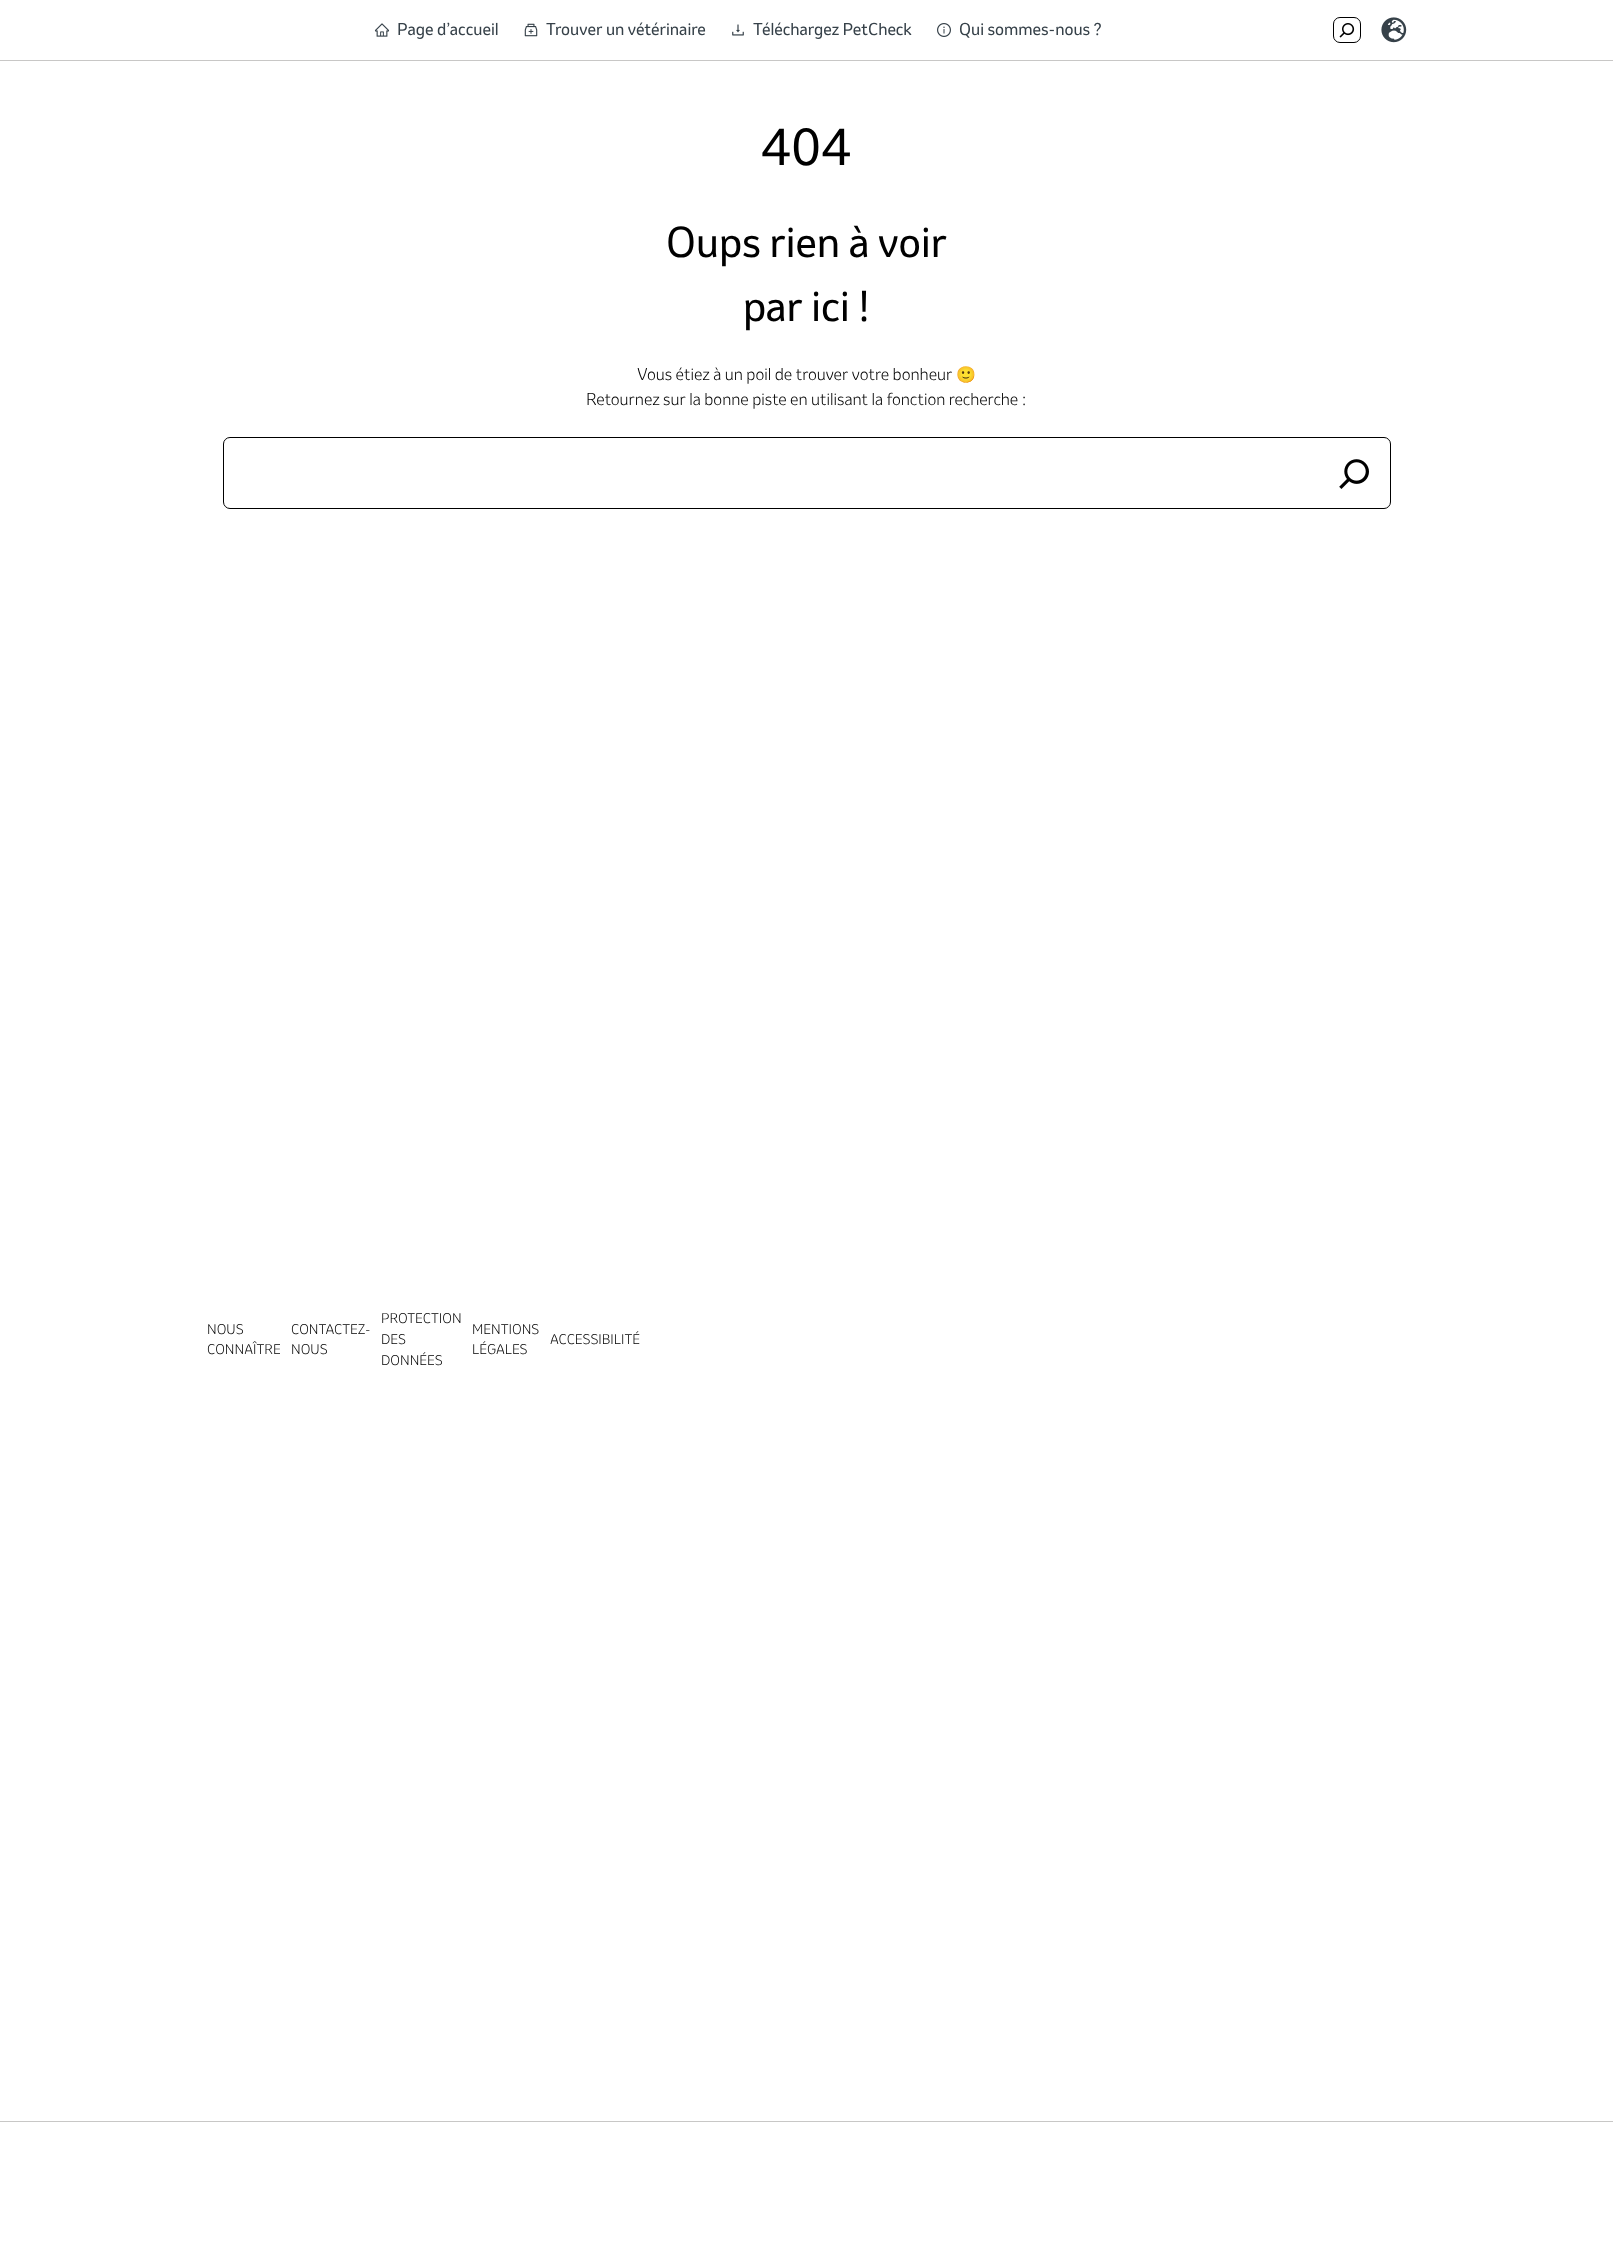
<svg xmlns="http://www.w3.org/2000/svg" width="1613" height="2253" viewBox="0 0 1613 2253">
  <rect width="100%" height="100%" fill="#ffffff"/>
  <rect x="0" y="60" width="1613" height="1" fill="#c8c7c6"/>
  <image x="374" y="23" width="16" height="14" href="img1.png"/>
  <text x="397" y="35" font-family="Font" font-size="16" fill="#364149">Page d’accueil</text>
  <image x="524" y="23" width="14" height="14" href="img2.png"/>
  <text x="546" y="35" font-family="Font" font-size="16" fill="#364149">Trouver un vétérinaire</text>
  <image x="732" y="24" width="12" height="12" href="img3.png"/>
  <text x="753" y="35" font-family="Font" font-size="16" fill="#364149">Téléchargez PetCheck</text>
  <image x="937" y="23" width="14" height="14" href="img4.png"/>
  <text x="959" y="35" font-family="Font" font-size="16" fill="#364149">Qui sommes-nous ?</text>
  <rect x="1333.5" y="17.5" width="27" height="25" rx="6.5" fill="none" stroke="#000000"/>
  <image x="1339" y="23" width="16" height="15" href="img5.png"/>
  <image x="1381" y="17" width="26" height="26" href="img6.png"/>
  <text x="761" y="165" font-family="Font" font-size="48" fill="#000000">404</text>
  <text x="666" y="257" font-family="Font" font-size="40" fill="#000000">Oups rien à voir</text>
  <text x="743" y="321" font-family="Font" font-size="40" fill="#000000">par ici !</text>
  <text x="637" y="380" font-family="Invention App" font-size="16" font-weight="300" fill="#000000">Vous étiez à un poil de trouver votre bonheur</text>
  <text x="956" y="380" font-family="Noto Color Emoji" font-size="16" fill="#000000">🙂</text>
  <text x="586" y="405" font-family="Invention App" font-size="16" font-weight="300" fill="#000000">Retournez sur la bonne piste en utilisant la fonction recherche :</text>
  <rect x="223.5" y="437.5" width="1167" height="71" rx="6.5" fill="none" stroke="#000000"/>
  <image x="1339" y="459" width="30" height="30" href="img7.png"/>
  <rect x="0" y="2121" width="1613" height="1" fill="#c8c7c6"/>
  <text x="207" y="1334" font-family="Invention App" font-size="13" font-weight="300" fill="#000000">NOUS</text>
  <text x="207" y="1354" font-family="Invention App" font-size="13" font-weight="300" fill="#000000">CONNAÎTRE</text>
  <text x="291" y="1334" font-family="Invention App" font-size="13" font-weight="300" fill="#000000">CONTACTEZ-</text>
  <text x="291" y="1354" font-family="Invention App" font-size="13" font-weight="300" fill="#000000">NOUS</text>
  <text x="381" y="1323" font-family="Invention App" font-size="13" font-weight="300" fill="#000000">PROTECTION</text>
  <text x="381" y="1344" font-family="Invention App" font-size="13" font-weight="300" fill="#000000">DES</text>
  <text x="381" y="1365" font-family="Invention App" font-size="13" font-weight="300" fill="#000000">DONNÉES</text>
  <text x="472" y="1334" font-family="Invention App" font-size="13" font-weight="300" fill="#000000">MENTIONS</text>
  <text x="472" y="1354" font-family="Invention App" font-size="13" font-weight="300" fill="#000000">LÉGALES</text>
  <text x="550" y="1344" font-family="Invention App" font-size="13" font-weight="300" fill="#000000">ACCESSIBILITÉ</text>
</svg>
